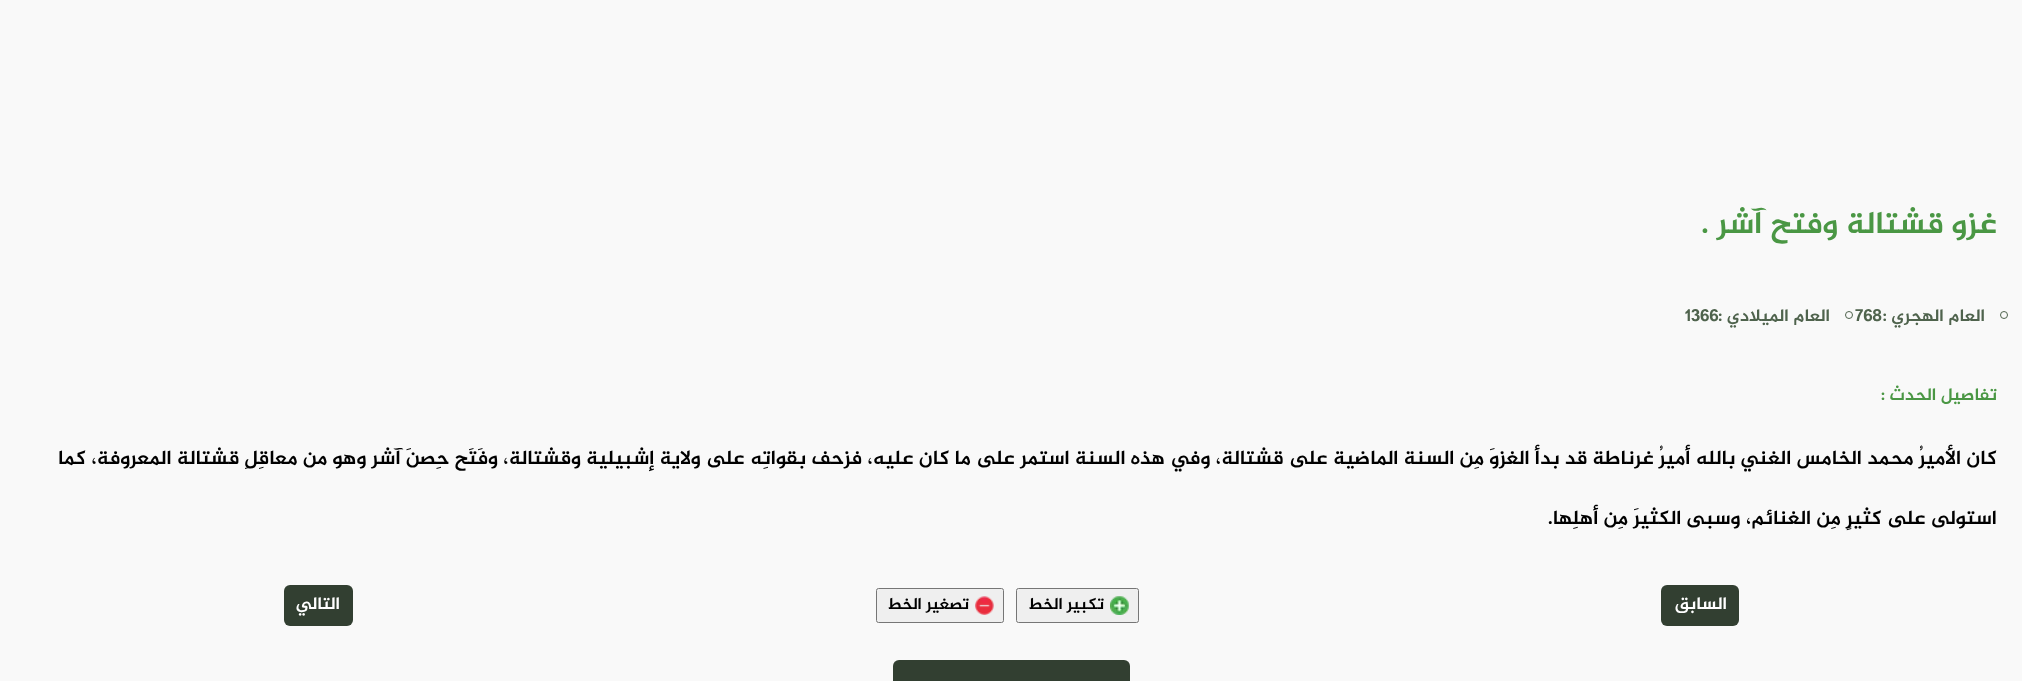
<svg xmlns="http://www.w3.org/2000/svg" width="2022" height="681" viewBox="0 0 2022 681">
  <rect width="100%" height="100%" fill="#f9f9f9"/>
  <text x="1997" y="233" font-family="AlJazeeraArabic" font-size="31.25" font-weight="bold" direction="rtl" fill="#4a9744">غزو قشتالة وفتح آشر .</text>
  <circle cx="2004" cy="315" r="3.5" fill="none" stroke="#4f634d"/>
  <text x="1985" y="321" font-family="AlJazeeraArabic" font-size="17.5" font-weight="bold" direction="rtl" fill="#4f634d">العام الهجري :</text>
  <text x="1855" y="321" font-family="AlJazeeraArabic" font-size="17.5" font-weight="bold" fill="#4f634d">768</text>
  <circle cx="1849" cy="315" r="3.5" fill="none" stroke="#4f634d"/>
  <text x="1830" y="321" font-family="AlJazeeraArabic" font-size="17.5" font-weight="bold" direction="rtl" fill="#4f634d">العام الميلادي :</text>
  <text x="1685" y="321" font-family="AlJazeeraArabic" font-size="17.5" font-weight="bold" fill="#4f634d">1366</text>
  <text x="1997" y="400" font-family="AlJazeeraArabic" font-size="17.5" font-weight="bold" direction="rtl" fill="#4a9744">تفاصيل الحدث :</text>
  <text x="1997" y="464" font-family="AlJazeeraArabic" font-size="20" font-weight="bold" direction="rtl" fill="#000000">كان الأميرُ محمد الخامس الغني بالله أميرُ غرناطة قد بدأ الغزوَ مِن السنة الماضية على قشتالة، وفي هذه السنة استمر على ما كان عليه، فزحف بقواتِه على ولاية إشبيلية وقشتالة، وفَتَح حِصنَ آشر وهو من معاقِلِ قشتالة المعروفة، كما</text>
  <text x="1997" y="524" font-family="AlJazeeraArabic" font-size="20" font-weight="bold" direction="rtl" fill="#000000">استولى على كثيرٍ مِن الغنائم، وسبى الكثيرَ مِن أهلِها.</text>
  <rect x="1661" y="585" width="78" height="41" rx="6" fill="#323f31"/>
  <text x="1727" y="609" font-family="AlJazeeraArabic" font-size="17.5" font-weight="bold" direction="rtl" fill="#ffffff">السابق</text>
  <rect x="1016.5" y="588.5" width="122" height="34" rx="2" fill="#efefef" stroke="#767676"/>
  <image x="1110" y="596" width="19" height="19" href="img1.png"/>
  <text x="1104" y="609" font-family="AlJazeeraArabic" font-size="16.5" font-weight="bold" direction="rtl" fill="#000000">تكبير الخط</text>
  <rect x="876.5" y="588.5" width="127" height="34" rx="2" fill="#efefef" stroke="#767676"/>
  <image x="975" y="596" width="19" height="19" href="img2.png"/>
  <text x="969" y="609" font-family="AlJazeeraArabic" font-size="16.5" font-weight="bold" direction="rtl" fill="#000000">تصغير الخط</text>
  <rect x="284" y="585" width="69" height="41" rx="6" fill="#323f31"/>
  <text x="340" y="609" font-family="AlJazeeraArabic" font-size="17.5" font-weight="bold" direction="rtl" fill="#ffffff">التالي</text>
  <rect x="893" y="660" width="237" height="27" rx="6" fill="#323f31"/>
</svg>
